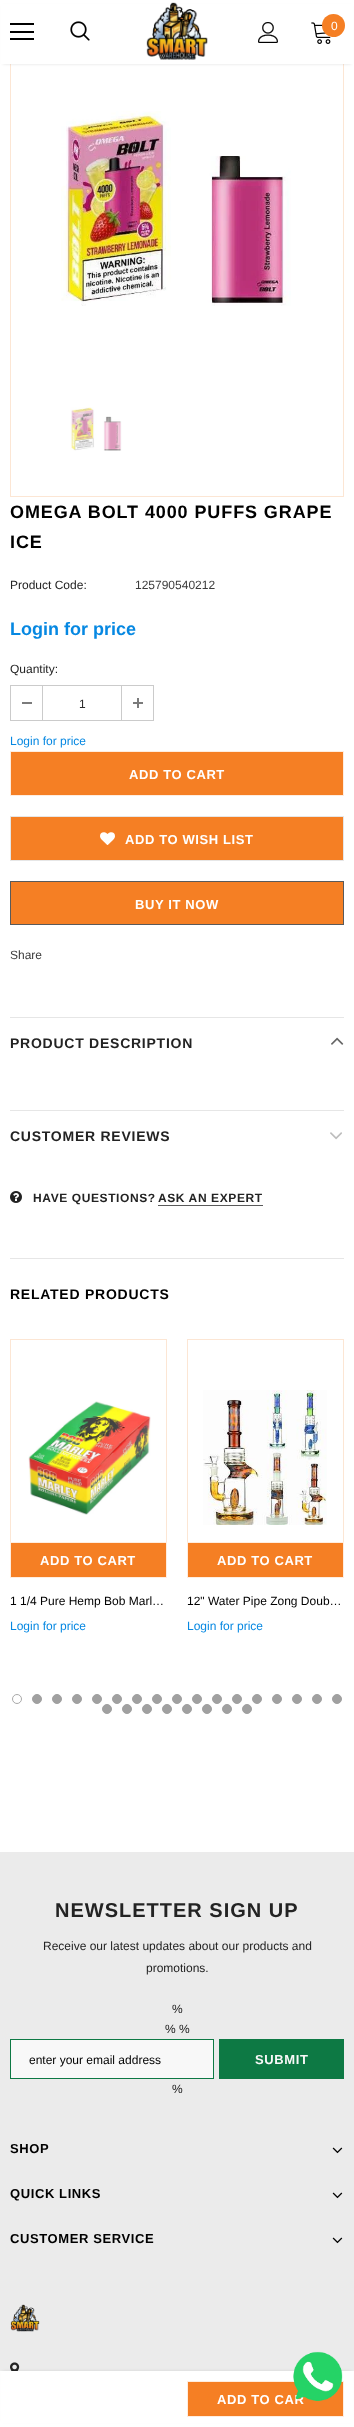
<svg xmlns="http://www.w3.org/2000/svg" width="354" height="2427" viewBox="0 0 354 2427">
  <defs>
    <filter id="blur1" x="-50%" y="-200%" width="200%" height="500%"><feGaussianBlur stdDeviation="1.5"/></filter>
  </defs>
  <rect width="100%" height="100%" fill="#ffffff"/>
  <rect x="10.5" y="40.5" width="333" height="456" fill="none" stroke="#fce6d4"/>
  <rect x="3" y="6" width="348" height="58" fill="#000000" fill-opacity="0.12" filter="url(#blur1)"/>
  <rect x="1" y="4" width="352" height="60" fill="#ffffff"/>
  <rect x="10" y="23" width="24" height="2" fill="#000000"/>
  <rect x="10" y="31" width="24" height="2" fill="#000000"/>
  <rect x="10" y="38" width="24" height="2" fill="#000000"/>
  <image x="70" y="21" width="20" height="20" href="img1.png"/>
  <image x="146" y="2" width="62" height="58" href="img2.png"/>
  <image x="258" y="22" width="20" height="21" href="img3.png"/>
  <image x="311" y="22" width="20" height="22" href="img4.png"/>
  <circle cx="333.5" cy="25.5" r="11.5" fill="#f57f24"/>
  <text x="331" y="30" font-family="Liberation Sans" font-size="12" fill="#ffffff">0</text>
  <image x="61" y="111" width="230" height="195" href="img5.png"/>
  <image x="70" y="407" width="52" height="44" href="img6.png"/>
  <text x="10" y="518" font-family="Liberation Sans" font-size="18" font-weight="bold" letter-spacing="0.9" fill="#000000">OMEGA BOLT 4000 PUFFS GRAPE</text>
  <text x="10" y="548" font-family="Liberation Sans" font-size="18" font-weight="bold" letter-spacing="0.9" fill="#000000">ICE</text>
  <text x="10" y="589" font-family="Liberation Sans" font-size="12" fill="#232323">Product Code:</text>
  <text x="135" y="589" font-family="Liberation Sans" font-size="12" fill="#3c3c3c">125790540212</text>
  <text x="10" y="635" font-family="Liberation Sans" font-size="18" font-weight="bold" fill="#0688e2">Login for price</text>
  <text x="10" y="673" font-family="Liberation Sans" font-size="12" fill="#232323">Quantity:</text>
  <rect x="10.5" y="685.5" width="143" height="35" fill="none" stroke="#cbcbcb"/>
  <rect x="42" y="686" width="1" height="34" fill="#cbcbcb"/>
  <rect x="22" y="702" width="10" height="2" fill="#7b7b7b"/>
  <text x="79" y="708" font-family="Liberation Sans" font-size="12" fill="#2d2d2d">1</text>
  <rect x="121" y="686" width="1" height="34" fill="#cbcbcb"/>
  <rect x="133" y="702" width="10" height="2" fill="#7b7b7b"/>
  <rect x="137" y="698" width="2" height="10" fill="#7b7b7b"/>
  <text x="10" y="745" font-family="Liberation Sans" font-size="12" fill="#0688e2">Login for price</text>
  <rect x="10.5" y="751.5" width="333" height="44" fill="#f57f24" stroke="#ffeddf"/>
  <text x="129" y="779" font-family="Liberation Sans" font-size="13" font-weight="bold" letter-spacing="0.6" fill="#ffffff">ADD TO CART</text>
  <rect x="10.5" y="816.5" width="333" height="44" fill="#f57f24" stroke="#e6e6e6"/>
  <image x="100" y="832" width="15" height="13" href="img7.png"/>
  <text x="125" y="844" font-family="Liberation Sans" font-size="13" font-weight="bold" letter-spacing="0.6" fill="#ffffff">ADD TO WISH LIST</text>
  <rect x="10.5" y="881.5" width="333" height="43" fill="#f57f24" stroke="#5a5a5a"/>
  <text x="135" y="909" font-family="Liberation Sans" font-size="13" font-weight="bold" letter-spacing="0.6" fill="#ffffff">BUY IT NOW</text>
  <text x="10" y="959" font-family="Liberation Sans" font-size="12" fill="#3c3c3c">Share</text>
  <rect x="10" y="1017" width="334" height="1" fill="#e6e6e6"/>
  <text x="10" y="1048" font-family="Liberation Sans" font-size="14" font-weight="bold" letter-spacing="0.75" fill="#232323">PRODUCT DESCRIPTION</text>
  <image x="331" y="1037" width="13" height="8" href="img8.png"/>
  <rect x="10" y="1110" width="334" height="1" fill="#e6e6e6"/>
  <text x="10" y="1141" font-family="Liberation Sans" font-size="14" font-weight="bold" letter-spacing="0.75" fill="#232323">CUSTOMER REVIEWS</text>
  <image x="330" y="1132" width="12" height="8" href="img9.png"/>
  <image x="10" y="1191" width="12" height="12" href="img10.png"/>
  <text x="33" y="1202" font-family="Liberation Sans" font-size="12" font-weight="bold" letter-spacing="0.6" fill="#232323">HAVE QUESTIONS?</text>
  <text x="158" y="1202" font-family="Liberation Sans" font-size="12" font-weight="bold" letter-spacing="0.6" fill="#232323">ASK AN EXPERT</text>
  <rect x="158" y="1205" width="105" height="1" fill="#5a5a5a"/>
  <rect x="10" y="1258" width="334" height="1" fill="#e6e6e6"/>
  <text x="10" y="1299" font-family="Liberation Sans" font-size="14" font-weight="bold" letter-spacing="0.75" fill="#000000">RELATED PRODUCTS</text>
  <rect x="10.5" y="1339.5" width="156" height="237" fill="none" stroke="#fce6d4"/>
  <image x="28" y="1401" width="123" height="114" href="img11.png"/>
  <rect x="10.5" y="1542.5" width="156" height="35" fill="#f57f24" stroke="#ffeddf"/>
  <text x="40" y="1565" font-family="Liberation Sans" font-size="13" font-weight="bold" letter-spacing="0.6" fill="#ffffff">ADD TO CART</text>
  <text x="10" y="1605" font-family="Liberation Sans" font-size="12" fill="#000000">1 1/4 Pure Hemp Bob Marl…</text>
  <text x="10" y="1630" font-family="Liberation Sans" font-size="12" fill="#0688e2">Login for price</text>
  <rect x="187.5" y="1339.5" width="156" height="237" fill="none" stroke="#fce6d4"/>
  <image x="203" y="1390" width="124" height="135" href="img12.png"/>
  <rect x="187.5" y="1542.5" width="156" height="35" fill="#f57f24" stroke="#ffeddf"/>
  <text x="217" y="1565" font-family="Liberation Sans" font-size="13" font-weight="bold" letter-spacing="0.6" fill="#ffffff">ADD TO CART</text>
  <text x="187" y="1605" font-family="Liberation Sans" font-size="12" fill="#000000">12" Water Pipe Zong Doub…</text>
  <text x="187" y="1630" font-family="Liberation Sans" font-size="12" fill="#0688e2">Login for price</text>
  <circle cx="17" cy="1699" r="4.5" fill="none" stroke="#a9a9a9"/>
  <circle cx="37" cy="1699" r="4.5" fill="#a0a0a0" stroke="#a0a0a0"/>
  <circle cx="57" cy="1699" r="4.5" fill="#a0a0a0" stroke="#a0a0a0"/>
  <circle cx="77" cy="1699" r="4.5" fill="#a0a0a0" stroke="#a0a0a0"/>
  <circle cx="97" cy="1699" r="4.5" fill="#a0a0a0" stroke="#a0a0a0"/>
  <circle cx="117" cy="1699" r="4.5" fill="#a0a0a0" stroke="#a0a0a0"/>
  <circle cx="137" cy="1699" r="4.5" fill="#a0a0a0" stroke="#a0a0a0"/>
  <circle cx="157" cy="1699" r="4.5" fill="#a0a0a0" stroke="#a0a0a0"/>
  <circle cx="177" cy="1699" r="4.5" fill="#a0a0a0" stroke="#a0a0a0"/>
  <circle cx="197" cy="1699" r="4.5" fill="#a0a0a0" stroke="#a0a0a0"/>
  <circle cx="217" cy="1699" r="4.5" fill="#a0a0a0" stroke="#a0a0a0"/>
  <circle cx="237" cy="1699" r="4.5" fill="#a0a0a0" stroke="#a0a0a0"/>
  <circle cx="257" cy="1699" r="4.5" fill="#a0a0a0" stroke="#a0a0a0"/>
  <circle cx="277" cy="1699" r="4.5" fill="#a0a0a0" stroke="#a0a0a0"/>
  <circle cx="297" cy="1699" r="4.5" fill="#a0a0a0" stroke="#a0a0a0"/>
  <circle cx="317" cy="1699" r="4.5" fill="#a0a0a0" stroke="#a0a0a0"/>
  <circle cx="337" cy="1699" r="4.5" fill="#a0a0a0" stroke="#a0a0a0"/>
  <circle cx="107" cy="1709" r="4.5" fill="#a0a0a0" stroke="#a0a0a0"/>
  <circle cx="127" cy="1709" r="4.5" fill="#a0a0a0" stroke="#a0a0a0"/>
  <circle cx="147" cy="1709" r="4.5" fill="#a0a0a0" stroke="#a0a0a0"/>
  <circle cx="167" cy="1709" r="4.5" fill="#a0a0a0" stroke="#a0a0a0"/>
  <circle cx="187" cy="1709" r="4.5" fill="#a0a0a0" stroke="#a0a0a0"/>
  <circle cx="207" cy="1709" r="4.5" fill="#a0a0a0" stroke="#a0a0a0"/>
  <circle cx="227" cy="1709" r="4.5" fill="#a0a0a0" stroke="#a0a0a0"/>
  <circle cx="247" cy="1709" r="4.5" fill="#a0a0a0" stroke="#a0a0a0"/>
  <rect x="0" y="1852" width="354" height="519" fill="#ebebeb"/>
  <image x="10" y="2362" width="10" height="9" href="img15.png"/>
  <rect x="3" y="2371" width="348" height="50" fill="#000000" fill-opacity="0.1" filter="url(#blur1)"/>
  <rect x="1" y="2371" width="352" height="52" fill="#ffffff"/>
  <rect x="187.5" y="2381.5" width="156" height="35" fill="#f57f24" stroke="#ffeddf"/>
  <text x="217" y="2404" font-family="Liberation Sans" font-size="13" font-weight="bold" letter-spacing="0.6" fill="#ffffff">ADD TO CAR</text>
  <text x="55" y="1917" font-family="Liberation Sans" font-size="20" font-weight="bold" letter-spacing="1" fill="#232323">NEWSLETTER SIGN UP</text>
  <text x="43" y="1950" font-family="Liberation Sans" font-size="12" fill="#232323">Receive our latest updates about our products and</text>
  <text x="146" y="1972" font-family="Liberation Sans" font-size="12" fill="#232323">promotions.</text>
  <text x="172" y="2013" font-family="Liberation Sans" font-size="12" fill="#232323">%</text>
  <text x="165" y="2033" font-family="Liberation Sans" font-size="12" fill="#232323">% %</text>
  <rect x="10.5" y="2039.5" width="203" height="39" fill="#f8f8f8" stroke="#0d7944"/>
  <text x="29" y="2064" font-family="Liberation Sans" font-size="12" fill="#000000">enter your email address</text>
  <rect x="219" y="2039" width="125" height="40" fill="#0d7944"/>
  <text x="255" y="2064" font-family="Liberation Sans" font-size="13" font-weight="bold" letter-spacing="0.6" fill="#f8f8f8">SUBMIT</text>
  <text x="172" y="2093" font-family="Liberation Sans" font-size="12" fill="#232323">%</text>
  <text x="10" y="2153" font-family="Liberation Sans" font-size="13" font-weight="bold" letter-spacing="0.6" fill="#000000">SHOP</text>
  <image x="332" y="2147" width="11" height="7" href="img13.png"/>
  <text x="10" y="2198" font-family="Liberation Sans" font-size="13" font-weight="bold" letter-spacing="0.6" fill="#000000">QUICK LINKS</text>
  <image x="332" y="2192" width="11" height="7" href="img13.png"/>
  <text x="10" y="2243" font-family="Liberation Sans" font-size="13" font-weight="bold" letter-spacing="0.6" fill="#000000">CUSTOMER SERVICE</text>
  <image x="332" y="2237" width="11" height="7" href="img13.png"/>
  <image x="10" y="2304" width="30" height="28" href="img14.png"/>
  <image x="293" y="2351" width="50" height="50" href="img16.png"/>
</svg>
